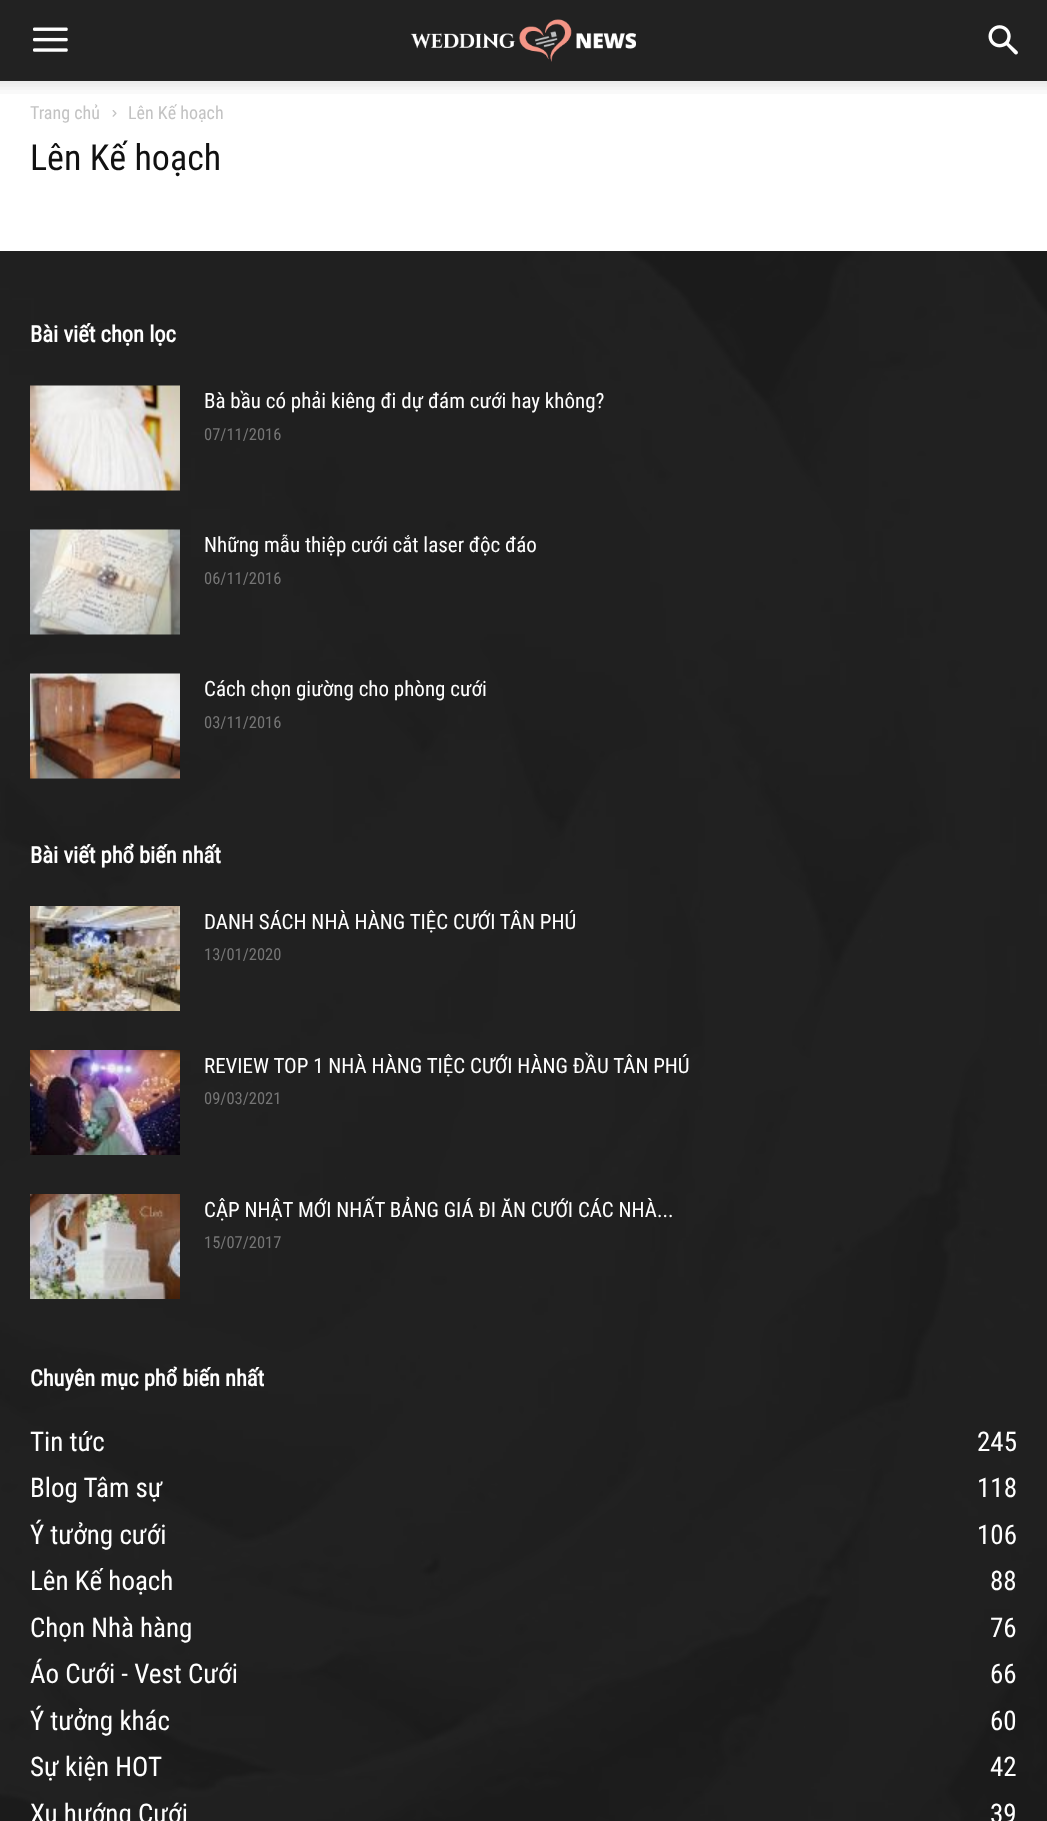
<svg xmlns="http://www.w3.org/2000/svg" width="1047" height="1821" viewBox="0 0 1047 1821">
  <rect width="100%" height="100%" fill="#ffffff"/>
  <rect x="0" y="0" width="1047" height="81" fill="#222222"/>
  <image x="33" y="27" width="35" height="25" href="img1.png"/>
  <image x="410" y="19" width="226" height="43" href="img2.png"/>
  <image x="988" y="25" width="30" height="30" href="img3.png"/>
  <image x="0" y="81" width="1047" height="13" href="img4.png"/>
  <text x="30" y="119" font-family="Roboto Condensed" font-size="18" fill="#c3c3c3">Trang chủ</text>
  <image x="112" y="110" width="5" height="7" href="img5.png"/>
  <text x="128" y="119" font-family="Roboto Condensed" font-size="18" fill="#c3c3c3">Lên Kế hoạch</text>
  <text x="30" y="170" font-family="Roboto Condensed" font-size="36" fill="#111111">Lên Kế hoạch</text>
  <rect x="0" y="251" width="1047" height="1570" fill="#222222"/>
  <image x="0" y="251" width="1047" height="1570" href="img6.png"/>
  <text x="30" y="342" font-family="Roboto Condensed" font-size="22.5" font-weight="bold" fill="#ffffff">Bài viết chọn lọc</text>
  <image x="30" y="385" width="150" height="106" href="img7.png"/>
  <text x="204" y="408" font-family="Roboto Condensed" font-size="21" fill="#ffffff">Bà bầu có phải kiêng đi dự đám cưới hay không?</text>
  <text x="204" y="440" font-family="Roboto Condensed" font-size="16.5" fill="#767676">07/11/2016</text>
  <image x="30" y="529" width="150" height="106" href="img8.png"/>
  <text x="204" y="552" font-family="Roboto Condensed" font-size="21" fill="#ffffff">Những mẫu thiệp cưới cắt laser độc đáo</text>
  <text x="204" y="584" font-family="Roboto Condensed" font-size="16.5" fill="#767676">06/11/2016</text>
  <image x="30" y="673" width="150" height="106" href="img9.png"/>
  <text x="204" y="696" font-family="Roboto Condensed" font-size="21" fill="#ffffff">Cách chọn giường cho phòng cưới</text>
  <text x="204" y="728" font-family="Roboto Condensed" font-size="16.5" fill="#767676">03/11/2016</text>
  <text x="30" y="863" font-family="Roboto Condensed" font-size="22.5" font-weight="bold" fill="#ffffff">Bài viết phổ biến nhất</text>
  <image x="30" y="906" width="150" height="105" href="img10.png"/>
  <text x="204" y="929" font-family="Roboto Condensed" font-size="21" fill="#ffffff">DANH SÁCH NHÀ HÀNG TIỆC CƯỚI TÂN PHÚ</text>
  <text x="204" y="960" font-family="Roboto Condensed" font-size="16.5" fill="#767676">13/01/2020</text>
  <image x="30" y="1050" width="150" height="105" href="img11.png"/>
  <text x="204" y="1073" font-family="Roboto Condensed" font-size="21" fill="#ffffff">REVIEW TOP 1 NHÀ HÀNG TIỆC CƯỚI HÀNG ĐẦU TÂN PHÚ</text>
  <text x="204" y="1104" font-family="Roboto Condensed" font-size="16.5" fill="#767676">09/03/2021</text>
  <image x="30" y="1194" width="150" height="105" href="img12.png"/>
  <text x="204" y="1217" font-family="Roboto Condensed" font-size="21" fill="#ffffff">CẬP NHẬT MỚI NHẤT BẢNG GIÁ ĐI ĂN CƯỚI CÁC NHÀ...</text>
  <text x="204" y="1248" font-family="Roboto Condensed" font-size="16.5" fill="#767676">15/07/2017</text>
  <text x="30" y="1386" font-family="Roboto Condensed" font-size="22.5" font-weight="bold" fill="#ffffff">Chuyên mục phổ biến nhất</text>
  <text x="30" y="1451" font-family="Roboto Condensed" font-size="27" fill="#ffffff">Tin tức</text>
  <text x="977" y="1451" font-family="Roboto Condensed" font-size="27" fill="#ffffff">245</text>
  <text x="30" y="1497" font-family="Roboto Condensed" font-size="27" fill="#ffffff">Blog Tâm sự</text>
  <text x="977" y="1497" font-family="Roboto Condensed" font-size="27" fill="#ffffff">118</text>
  <text x="30" y="1544" font-family="Roboto Condensed" font-size="27" fill="#ffffff">Ý tưởng cưới</text>
  <text x="977" y="1544" font-family="Roboto Condensed" font-size="27" fill="#ffffff">106</text>
  <text x="30" y="1590" font-family="Roboto Condensed" font-size="27" fill="#ffffff">Lên Kế hoạch</text>
  <text x="990" y="1590" font-family="Roboto Condensed" font-size="27" fill="#ffffff">88</text>
  <text x="30" y="1637" font-family="Roboto Condensed" font-size="27" fill="#ffffff">Chọn Nhà hàng</text>
  <text x="990" y="1637" font-family="Roboto Condensed" font-size="27" fill="#ffffff">76</text>
  <text x="30" y="1683" font-family="Roboto Condensed" font-size="27" fill="#ffffff">Áo Cưới - Vest Cưới</text>
  <text x="990" y="1683" font-family="Roboto Condensed" font-size="27" fill="#ffffff">66</text>
  <text x="30" y="1730" font-family="Roboto Condensed" font-size="27" fill="#ffffff">Ý tưởng khác</text>
  <text x="990" y="1730" font-family="Roboto Condensed" font-size="27" fill="#ffffff">60</text>
  <text x="30" y="1776" font-family="Roboto Condensed" font-size="27" fill="#ffffff">Sự kiện HOT</text>
  <text x="990" y="1776" font-family="Roboto Condensed" font-size="27" fill="#ffffff">42</text>
  <text x="30" y="1823" font-family="Roboto Condensed" font-size="27" fill="#ffffff">Xu hướng Cưới</text>
  <text x="990" y="1823" font-family="Roboto Condensed" font-size="27" fill="#ffffff">39</text>
</svg>
